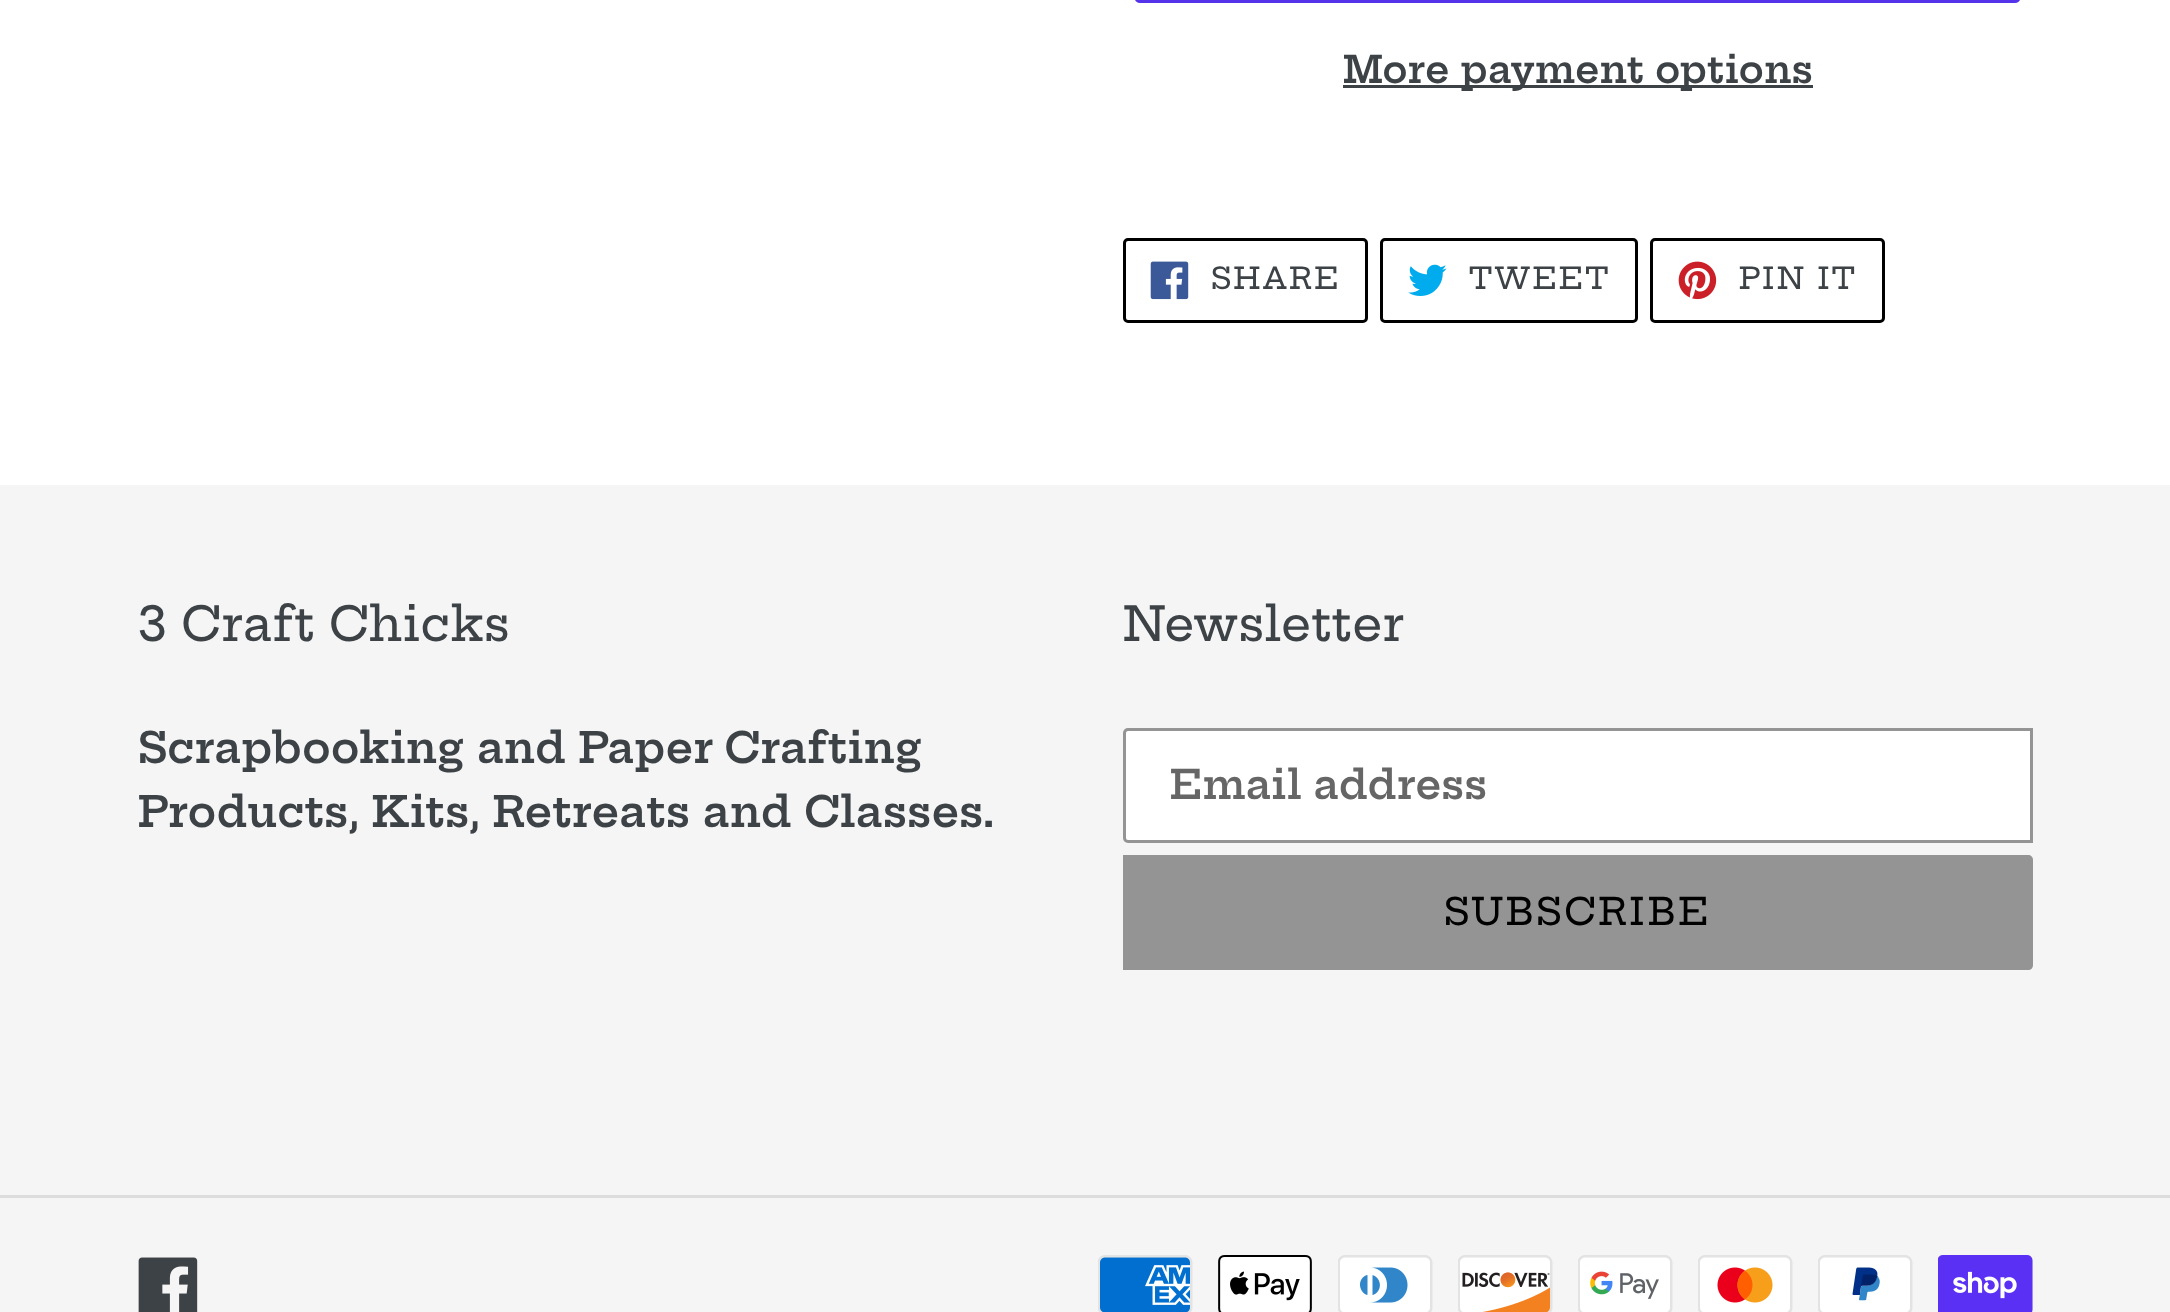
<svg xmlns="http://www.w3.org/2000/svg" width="2170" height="1312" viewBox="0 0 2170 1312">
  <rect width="100%" height="100%" fill="#ffffff"/>
  <rect x="1135" y="-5" width="885" height="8" rx="5" fill="#5433eb"/>
  <rect x="1343" y="85" width="470" height="3" fill="#3d4246"/>
  <text x="1343" y="83" font-family="Hepta Slab" font-size="37.5" font-weight="600" fill="#3d4246">More payment options</text>
  <rect x="1124.5" y="239.5" width="242" height="82" rx="3.5" fill="none" stroke="#000000" stroke-width="3"/>
  <image x="1150" y="261" width="39" height="39" href="img1.png"/>
  <text x="1211" y="289" font-family="Hepta Slab" font-size="30" font-weight="500" letter-spacing="2.5" fill="#3d4246">SHARE</text>
  <rect x="1381.5" y="239.5" width="255" height="82" rx="3.5" fill="none" stroke="#000000" stroke-width="3"/>
  <image x="1408" y="264" width="39" height="32" href="img2.png"/>
  <text x="1469" y="289" font-family="Hepta Slab" font-size="30" font-weight="500" letter-spacing="2.5" fill="#3d4246">TWEET</text>
  <rect x="1651.5" y="239.5" width="232" height="82" rx="3.5" fill="none" stroke="#000000" stroke-width="3"/>
  <image x="1678" y="261" width="39" height="39" href="img3.png"/>
  <text x="1739" y="289" font-family="Hepta Slab" font-size="30" font-weight="500" letter-spacing="2.5" fill="#3d4246">PIN IT</text>
  <rect x="0" y="485" width="2170" height="827" fill="#f5f5f5"/>
  <text x="138" y="641" font-family="Hepta Slab" font-size="47.5" font-weight="500" fill="#3d4246">3 Craft Chicks</text>
  <text x="138" y="763" font-family="Hepta Slab" font-size="42.5" font-weight="600" fill="#3d4246">Scrapbooking and Paper Crafting</text>
  <text x="138" y="827" font-family="Hepta Slab" font-size="42.5" font-weight="600" fill="#3d4246">Products, Kits, Retreats and Classes.</text>
  <text x="1123" y="641" font-family="Hepta Slab" font-size="47.5" font-weight="500" fill="#3d4246">Newsletter</text>
  <path d="M1128 729.5H2031.5V841.5H1128C1126 841.5 1124.5 840 1124.5 838V733C1124.5 731 1126 729.5 1128 729.5Z" fill="#ffffff" stroke="#949494" stroke-width="3"/>
  <text x="1170" y="799" font-family="Hepta Slab" font-size="40" font-weight="600" fill="#666666">Email address</text>
  <path d="M1123 855H2028C2031 855 2033 857 2033 860V965C2033 968 2031 970 2028 970H1123Z" fill="#949494"/>
  <text x="1444" y="925" font-family="Hepta Slab" font-size="37.5" font-weight="500" letter-spacing="3" fill="#000000">SUBSCRIBE</text>
  <rect x="0" y="1195" width="2170" height="3" fill="#dcdcdc"/>
  <image x="138" y="1257" width="60" height="55" href="img4.png"/>
  <image x="1098" y="1255" width="95" height="57" href="img5.png"/>
  <image x="1218" y="1255" width="94" height="57" href="img6.png"/>
  <image x="1338" y="1255" width="95" height="57" href="img7.png"/>
  <image x="1458" y="1255" width="95" height="57" href="img8.png"/>
  <image x="1578" y="1255" width="95" height="57" href="img9.png"/>
  <image x="1698" y="1255" width="95" height="57" href="img10.png"/>
  <image x="1818" y="1255" width="95" height="57" href="img11.png"/>
  <image x="1938" y="1255" width="95" height="57" href="img12.png"/>
</svg>
